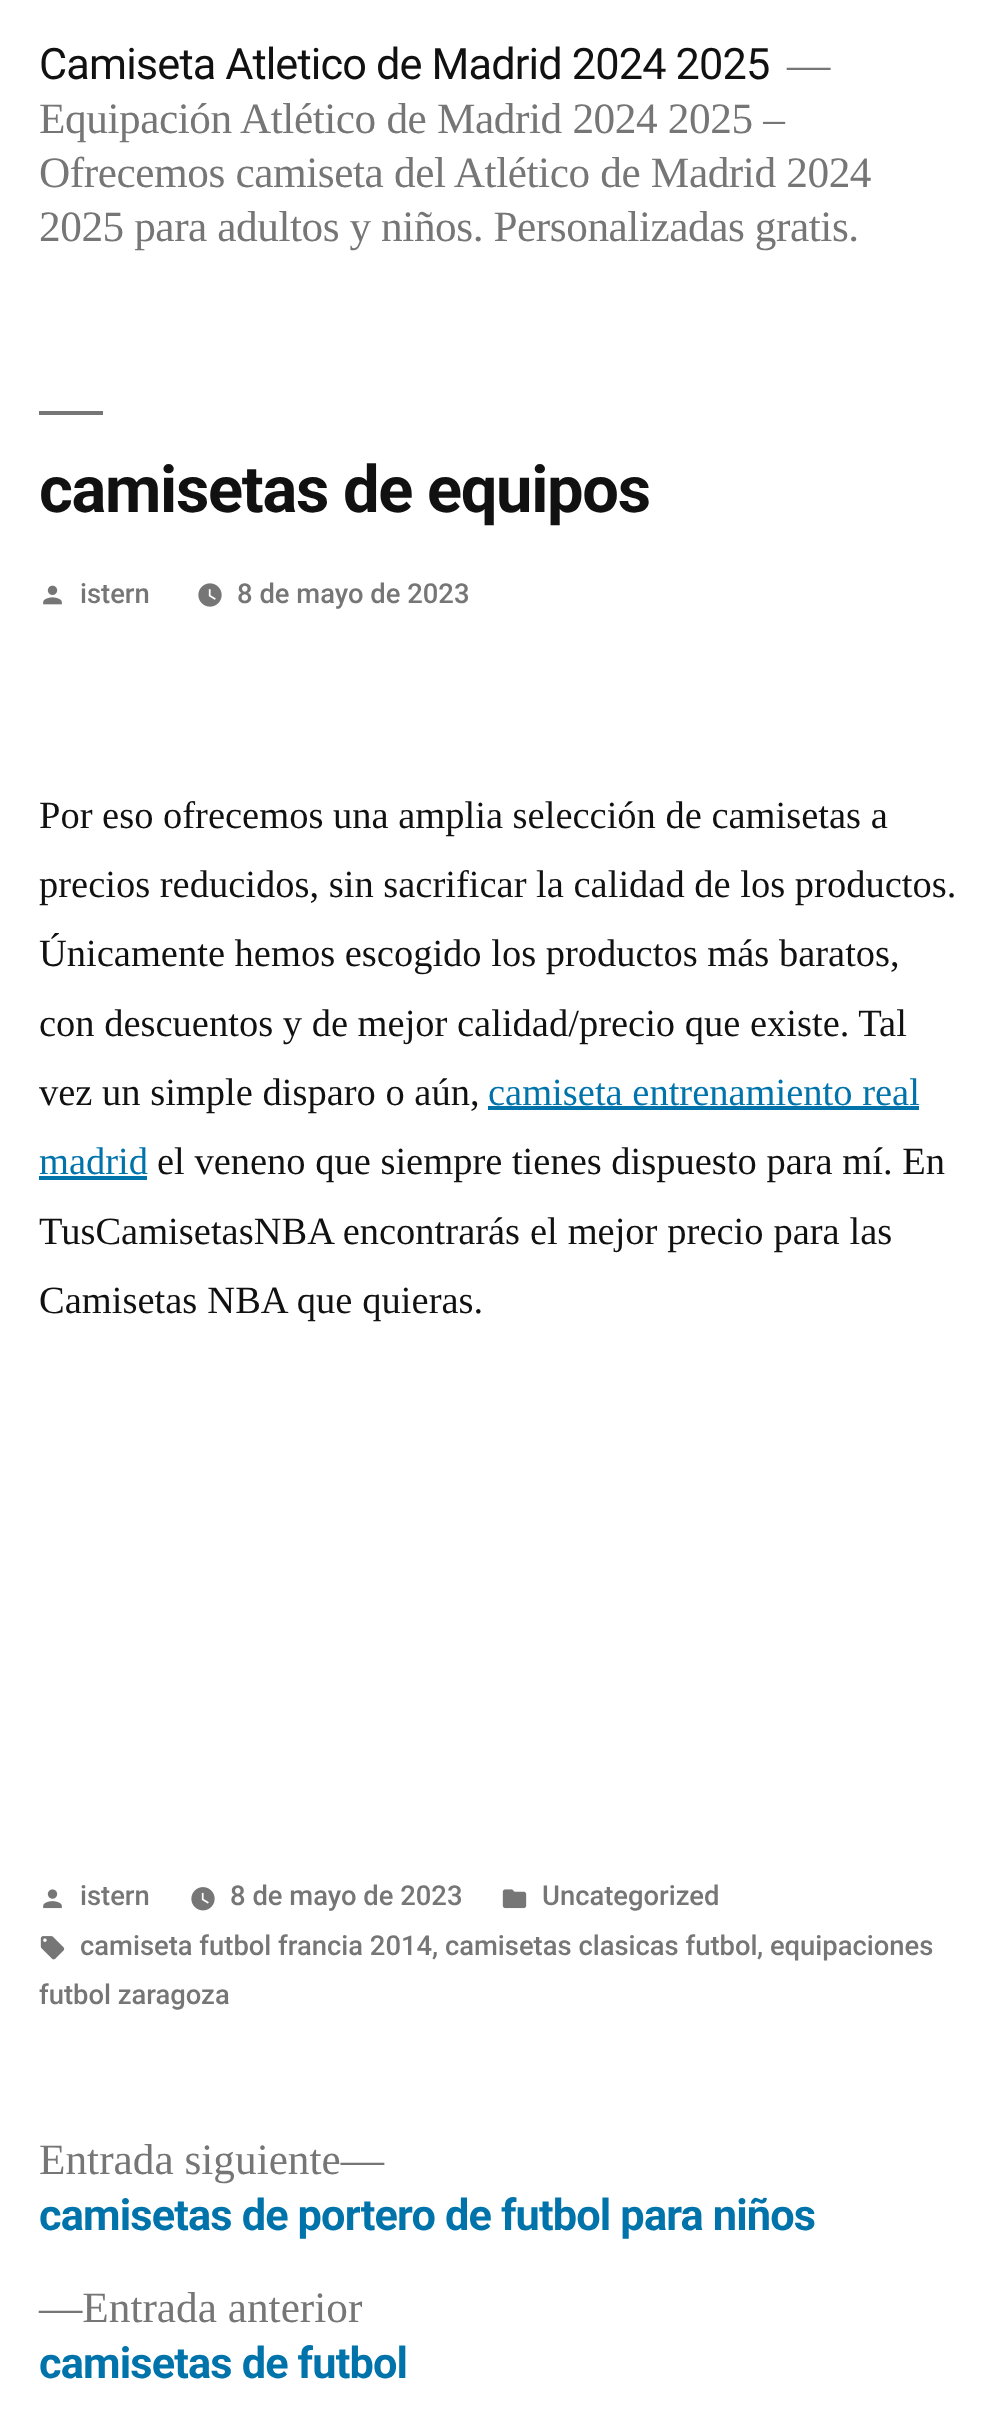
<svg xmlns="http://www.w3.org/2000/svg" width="1001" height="2425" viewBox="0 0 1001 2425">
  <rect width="100%" height="100%" fill="#ffffff"/>
  <text x="39" y="79" font-family="Roboto" font-size="43.3" letter-spacing="-0.85" fill="#111111">Camiseta Atletico de Madrid 2024 2025</text>
  <text x="787" y="79" font-family="Liberation Serif" font-size="43.3" letter-spacing="-0.45" fill="#767676">—</text>
  <text x="39" y="133" word-spacing="0.25" font-family="Liberation Serif" font-size="43.3" letter-spacing="-0.45" fill="#767676">Equipación Atlético de Madrid 2024 2025 –</text>
  <text x="39" y="187" word-spacing="0.25" font-family="Liberation Serif" font-size="43.3" letter-spacing="-0.45" fill="#767676">Ofrecemos camiseta del Atlético de Madrid 2024</text>
  <text x="39" y="241" font-family="Liberation Serif" font-size="43.3" letter-spacing="-0.45" fill="#767676">2025 para adultos y niños. Personalizadas gratis.</text>
  <rect x="39" y="411" width="64" height="4" fill="#767676"/>
  <text x="39" y="512" font-family="Roboto" font-size="65" font-weight="bold" letter-spacing="-1.3" fill="#111111">camisetas de equipos</text>
  <image x="43" y="585" width="19" height="20" href="img1.png"/>
  <text x="80" y="603" font-family="Roboto" font-size="27.4" font-weight="500" fill="#767676">istern</text>
  <image x="198" y="583" width="24" height="24" href="img2.png"/>
  <text x="237" y="603" font-family="Roboto" font-size="27.4" font-weight="500" fill="#767676">8 de mayo de 2023</text>
  <text x="39" y="828" font-family="Liberation Serif" font-size="38.5" fill="#111111">Por eso ofrecemos una amplia selección de camisetas a</text>
  <text x="39" y="897" font-family="Liberation Serif" font-size="38.5" fill="#111111">precios reducidos, sin sacrificar la calidad de los productos.</text>
  <text x="39" y="966" font-family="Liberation Serif" font-size="38.5" fill="#111111">Únicamente hemos escogido los productos más baratos,</text>
  <text x="39" y="1036" font-family="Liberation Serif" font-size="38.5" fill="#111111">con descuentos y de mejor calidad/precio que existe. Tal</text>
  <text x="39" y="1105" font-family="Liberation Serif" font-size="38.5" fill="#111111">vez un simple disparo o aún,</text>
  <text x="488" y="1105" font-family="Liberation Serif" font-size="38.5" fill="#0073aa">camiseta entrenamiento real</text>
  <rect x="488" y="1106" width="431" height="4" fill="#0073aa"/>
  <text x="39" y="1174" font-family="Liberation Serif" font-size="38.5" fill="#0073aa">madrid</text>
  <rect x="39" y="1176" width="108" height="4" fill="#0073aa"/>
  <text x="157" y="1174" font-family="Liberation Serif" font-size="38.5" fill="#111111">el veneno que siempre tienes dispuesto para mí. En</text>
  <text x="39" y="1244" word-spacing="0.25" font-family="Liberation Serif" font-size="38.5" fill="#111111">TusCamisetasNBA encontrarás el mejor precio para las</text>
  <text x="39" y="1313" word-spacing="0.5" font-family="Liberation Serif" font-size="38.5" fill="#111111">Camisetas NBA que quieras.</text>
  <image x="43" y="1889" width="19" height="20" href="img3.png"/>
  <text x="80" y="1905" font-family="Roboto" font-size="27.4" font-weight="500" fill="#767676">istern</text>
  <image x="191" y="1887" width="24" height="24" href="img4.png"/>
  <text x="230" y="1905" font-family="Roboto" font-size="27.4" font-weight="500" fill="#767676">8 de mayo de 2023</text>
  <image x="502" y="1889" width="25" height="20" href="img5.png"/>
  <text x="542" y="1905" font-family="Roboto" font-size="27.4" font-weight="500" fill="#767676">Uncategorized</text>
  <image x="40" y="1936" width="25" height="24" href="img6.png"/>
  <text x="80" y="1955" font-family="Roboto" font-size="27.4" font-weight="500" fill="#767676">camiseta futbol francia 2014</text>
  <text x="432" y="1955" font-family="Roboto" font-size="27.4" font-weight="500" fill="#767676">, camisetas clasicas futbol</text>
  <text x="757" y="1955" font-family="Roboto" font-size="27.4" font-weight="500" fill="#767676">, equipaciones</text>
  <text x="39" y="2004" font-family="Roboto" font-size="27.4" font-weight="500" fill="#767676">futbol zaragoza</text>
  <text x="39" y="2174" font-family="Liberation Serif" font-size="43.3" fill="#767676">Entrada siguiente—</text>
  <text x="39" y="2230" font-family="Roboto" font-size="43.3" font-weight="bold" letter-spacing="-0.85" fill="#0073aa">camisetas de portero de futbol para niños</text>
  <text x="39" y="2322" font-family="Liberation Serif" font-size="43.3" fill="#767676">—Entrada anterior</text>
  <text x="39" y="2378" font-family="Roboto" font-size="43.3" font-weight="bold" letter-spacing="-0.85" fill="#0073aa">camisetas de futbol</text>
</svg>
